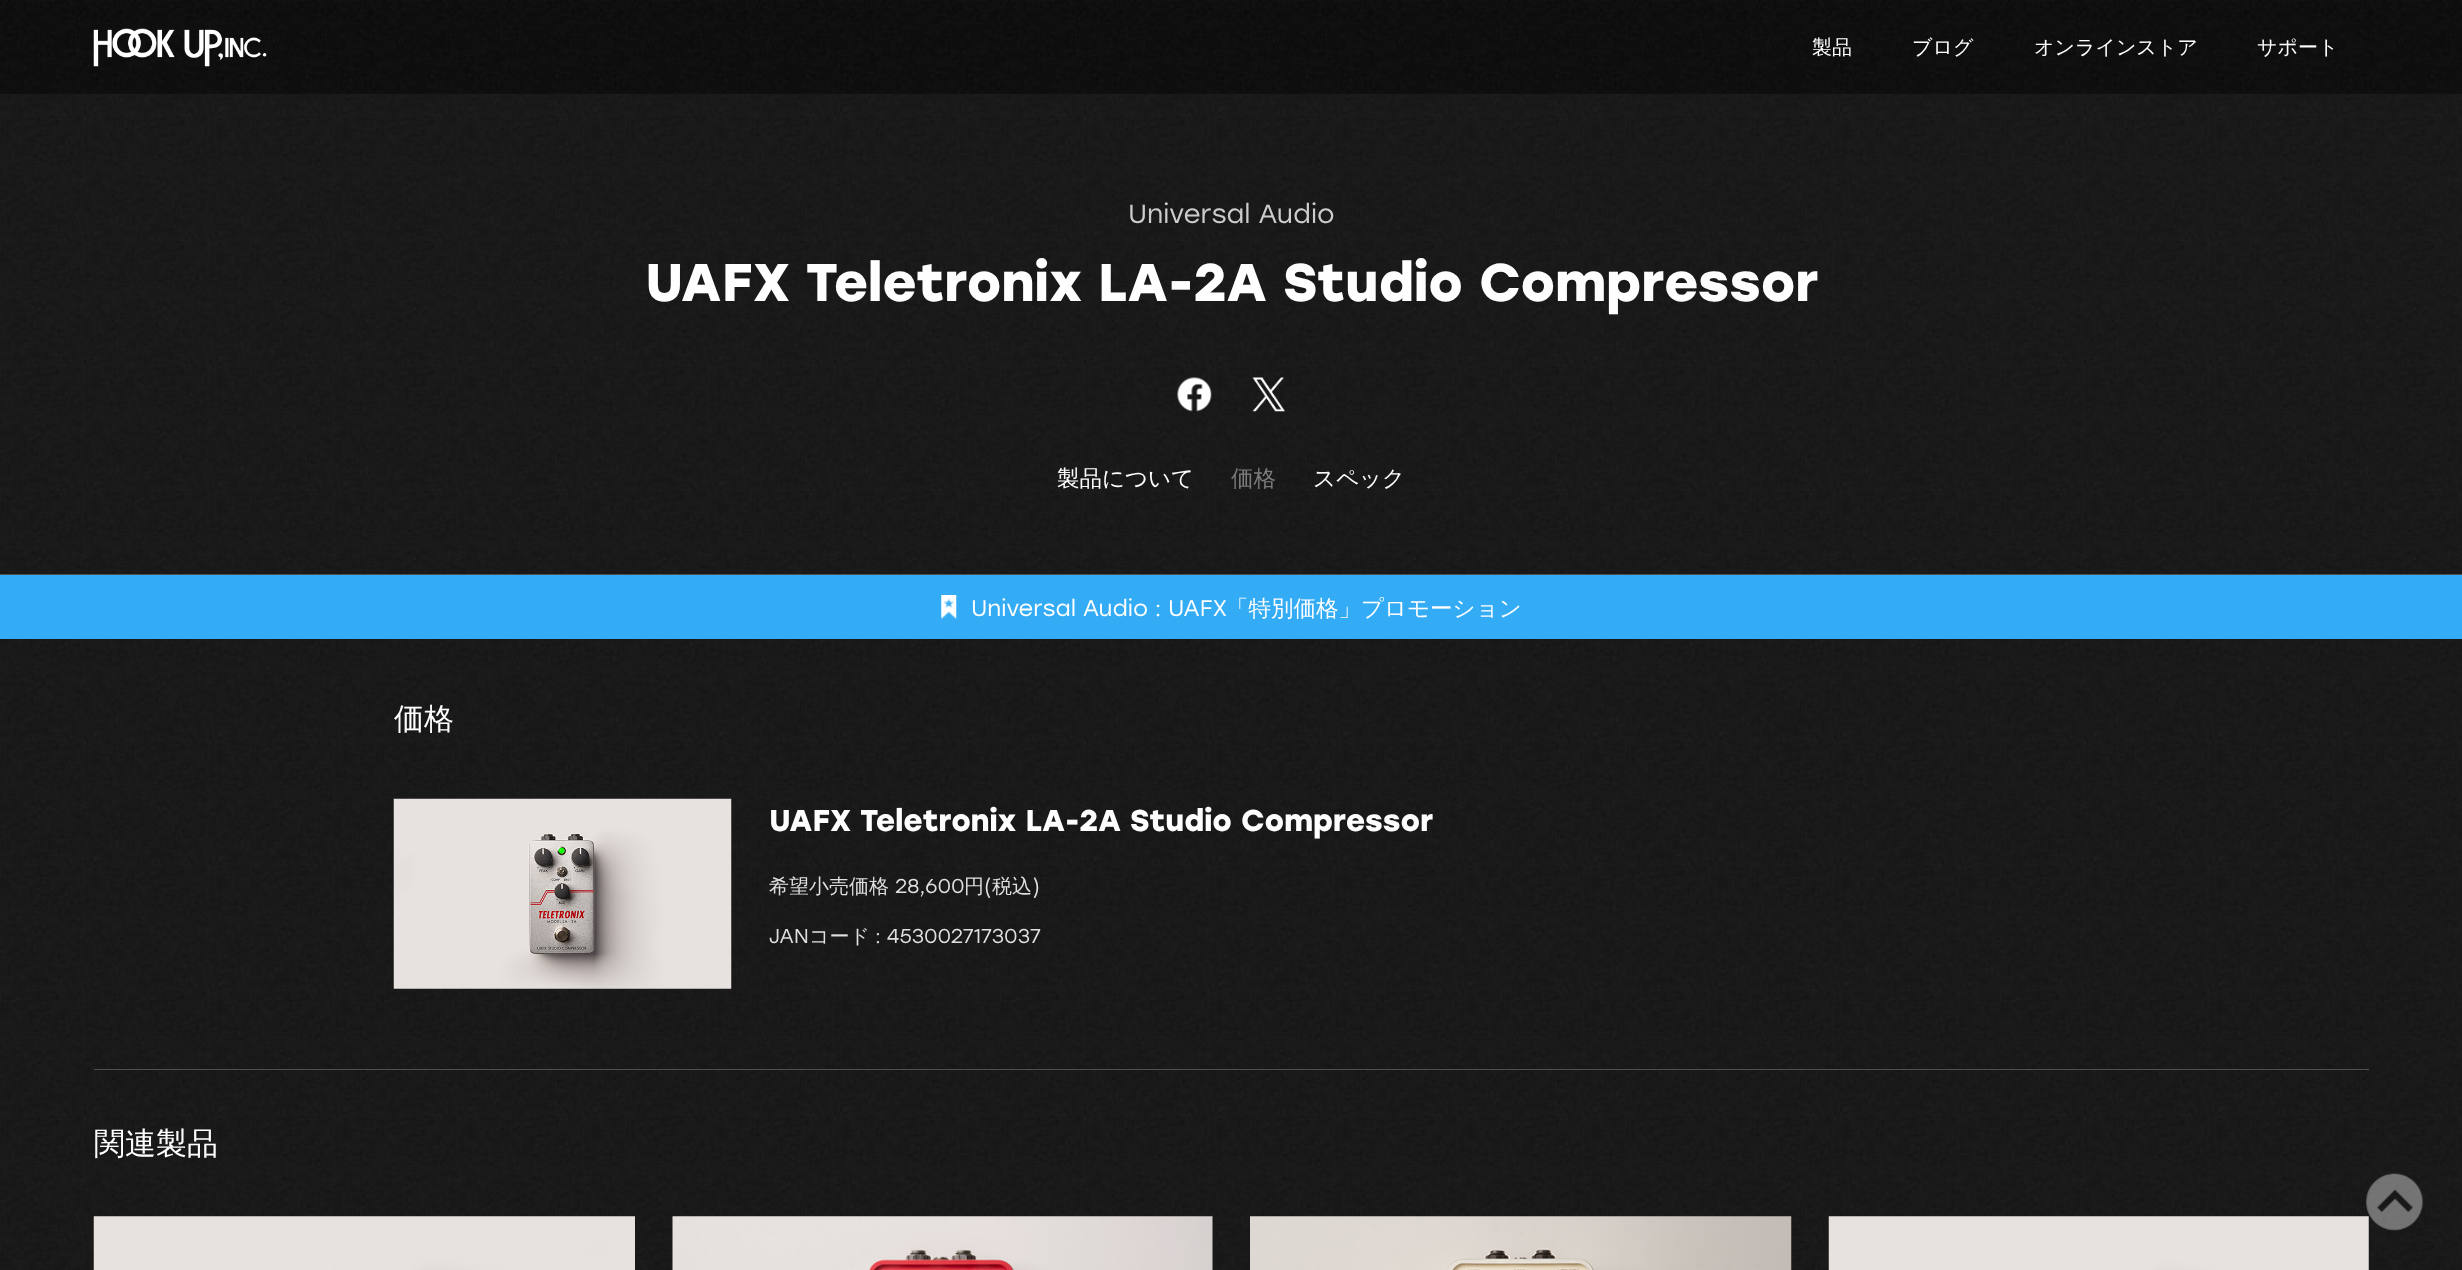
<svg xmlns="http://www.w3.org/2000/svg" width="2462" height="1270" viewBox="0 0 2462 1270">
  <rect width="100%" height="100%" fill="#ffffff"/>
  <image x="0" y="93" width="2462" height="1177" href="img1.png"/>
  <image x="0" y="0" width="2462" height="94" href="img2.png"/>
  <image x="93" y="28" width="174" height="39" href="img3.png"/>
  <text x="1812" y="54" font-family="WenQuanYi Zen Hei" font-size="20" font-weight="500" fill="#fefefe">製品</text>
  <text x="1912" y="54" font-family="WenQuanYi Zen Hei" font-size="20" font-weight="500" fill="#fefefe">ブログ</text>
  <text x="2034" y="54" font-family="WenQuanYi Zen Hei" font-size="20" font-weight="500" fill="#fefefe">オンラインストア</text>
  <text x="2257" y="54" font-family="WenQuanYi Zen Hei" font-size="20" font-weight="500" fill="#fefefe">サポート</text>
  <text x="1128" y="223" font-family="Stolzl" font-size="26.25" fill="#cccccc">Universal Audio</text>
  <text x="645" y="301" font-family="Stolzl" font-size="53" font-weight="bold" fill="#fefefe">UAFX Teletronix LA-2A Studio Compressor</text>
  <rect x="0" y="574" width="2462" height="1" fill="#4f4f4f"/>
  <image x="1177" y="377" width="35" height="35" href="img4.png"/>
  <image x="1252" y="377" width="33" height="35" href="img5.png"/>
  <text x="1057" y="486" font-family="WenQuanYi Zen Hei" font-size="22.5" font-weight="500" fill="#fefefe">製品について</text>
  <text x="1231" y="486" font-family="WenQuanYi Zen Hei" font-size="22.5" font-weight="500" fill="#7c7c7c">価格</text>
  <text x="1313" y="486" font-family="WenQuanYi Zen Hei" font-size="22.5" font-weight="500" fill="#fefefe">スペック</text>
  <rect x="0" y="575" width="2462" height="64" fill="#33acf5"/>
  <image x="941" y="595" width="16" height="24" href="img6.png"/>
  <text x="971" y="616" font-family="Stolzl" font-size="22.5" fill="#fefefe">Universal Audio : UAFX</text>
  <text x="1226" y="616" font-family="WenQuanYi Zen Hei" font-size="22.5" font-weight="500" fill="#fefefe">「特別価格」プロモーション</text>
  <text x="394" y="729" font-family="WenQuanYi Zen Hei" font-size="30" font-weight="500" fill="#fefefe">価格</text>
  <image x="393" y="798" width="339" height="191" href="img7.png"/>
  <text x="769" y="831" font-family="Stolzl" font-size="30" font-weight="bold" fill="#fefefe">UAFX Teletronix LA-2A Studio Compressor</text>
  <text x="769" y="893" font-family="WenQuanYi Zen Hei" font-size="20" font-weight="500" fill="#dfdfdf">希望小売価格</text>
  <text x="895" y="893" font-family="Stolzl" font-size="20" fill="#dfdfdf">28,600</text>
  <text x="964" y="893" font-family="WenQuanYi Zen Hei" font-size="20" font-weight="500" fill="#dfdfdf">円</text>
  <text x="984" y="893" font-family="Stolzl" font-size="20" fill="#dfdfdf">(</text>
  <text x="992" y="893" font-family="WenQuanYi Zen Hei" font-size="20" font-weight="500" fill="#dfdfdf">税込</text>
  <text x="1032" y="893" font-family="Stolzl" font-size="20" fill="#dfdfdf">)</text>
  <text x="769" y="943" font-family="Stolzl" font-size="20" fill="#dfdfdf">JAN</text>
  <text x="809" y="943" font-family="WenQuanYi Zen Hei" font-size="20" font-weight="500" fill="#dfdfdf">コード</text>
  <text x="875" y="943" font-family="Stolzl" font-size="20" fill="#dfdfdf">: 4530027173037</text>
  <rect x="94" y="1069" width="2275" height="1" fill="#4f4f4f"/>
  <text x="94" y="1154" font-family="WenQuanYi Zen Hei" font-size="31" font-weight="500" fill="#fefefe">関連製品</text>
  <image x="93" y="1216" width="542" height="54" href="img8.png"/>
  <image x="672" y="1216" width="541" height="54" href="img9.png"/>
  <image x="1250" y="1216" width="542" height="54" href="img10.png"/>
  <image x="1828" y="1216" width="541" height="54" href="img11.png"/>
  <image x="2366" y="1173" width="58" height="58" href="img12.png"/>
</svg>
